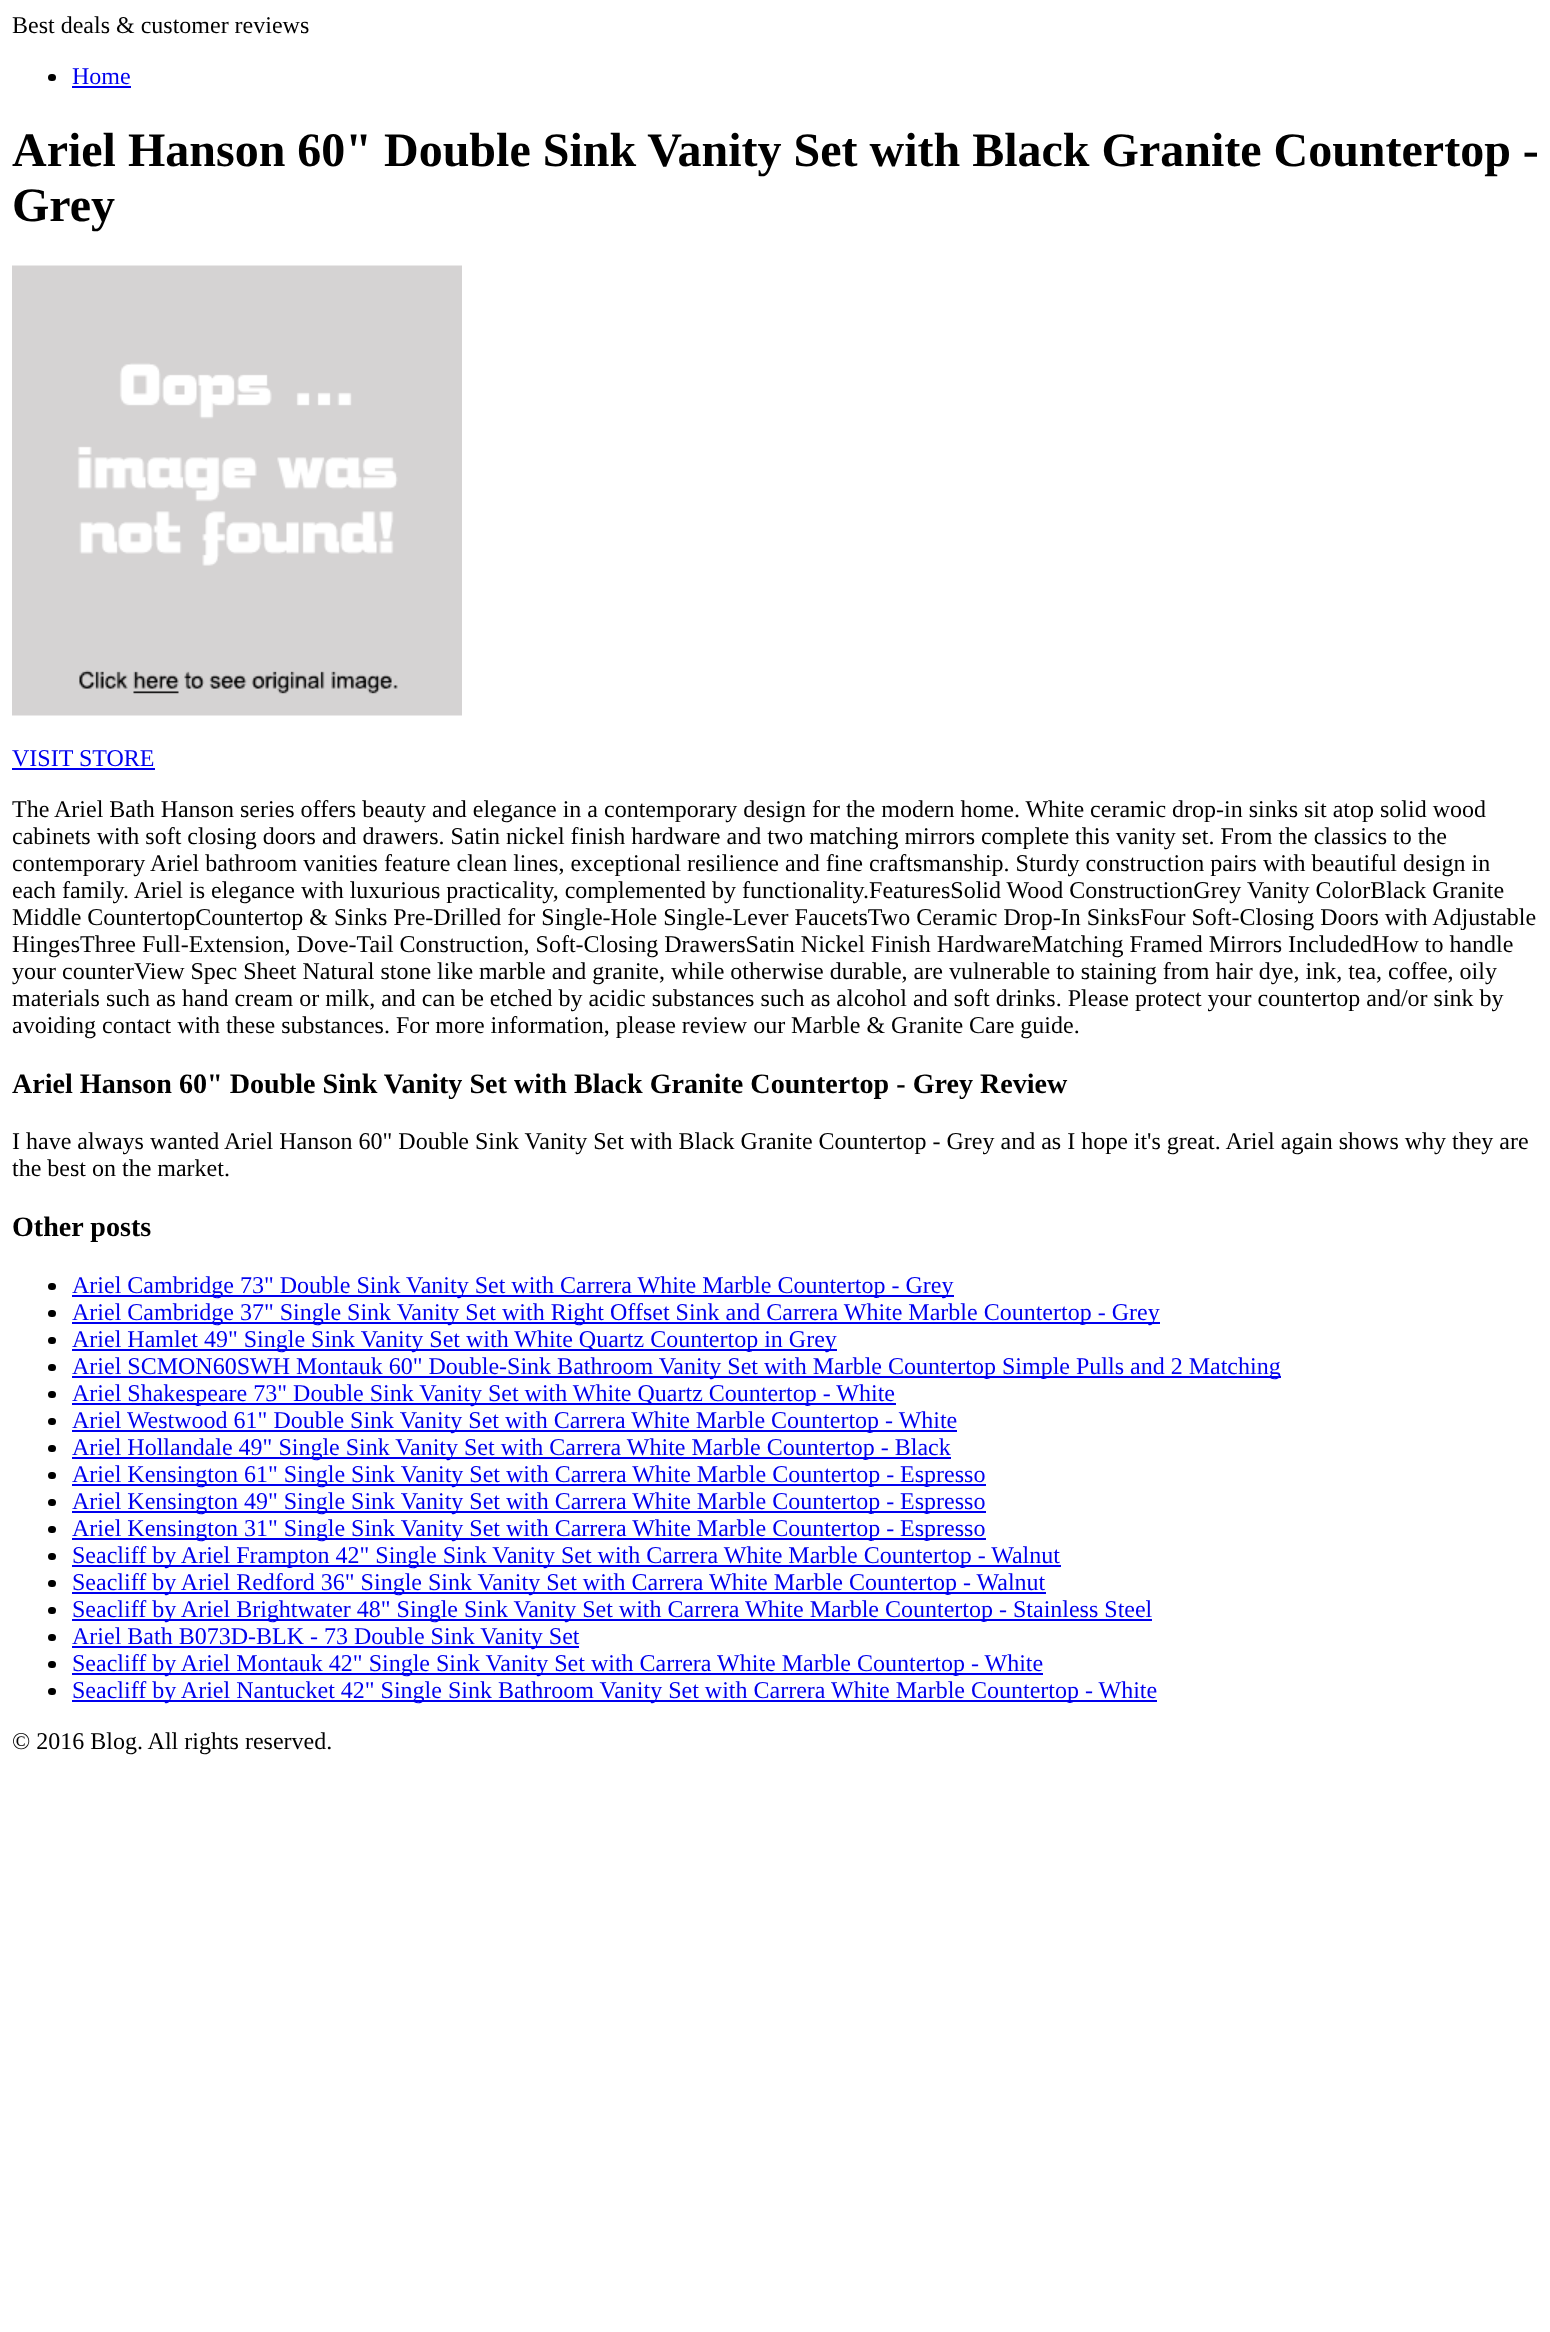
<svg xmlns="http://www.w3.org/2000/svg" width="1550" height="2332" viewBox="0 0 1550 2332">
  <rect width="100%" height="100%" fill="#ffffff"/>
  <text x="12" y="33" font-family="Liberation Serif" font-size="24" fill="#000000">Best deals &amp; customer reviews</text>
  <rect x="48" y="74" width="8" height="7" rx="3.5" fill="#000000"/>
  <text x="72" y="84" font-family="Liberation Serif" font-size="24" fill="#0000ee">Home</text>
  <rect x="72" y="86" width="59" height="2" fill="#0000ee"/>
  <text x="12" y="166" font-family="Liberation Serif" font-size="48" font-weight="bold" fill="#000000">Ariel Hanson 60" Double Sink Vanity Set with Black Granite Countertop -</text>
  <text x="12" y="221" font-family="Liberation Serif" font-size="48" font-weight="bold" fill="#000000">Grey</text>
  <image x="12" y="265" width="450" height="451" href="img1.png"/>
  <text x="12" y="766" font-family="Liberation Serif" font-size="24" fill="#0000ee">VISIT STORE</text>
  <rect x="12" y="768" width="143" height="2" fill="#0000ee"/>
  <text x="12" y="817" font-family="Liberation Serif" font-size="24" fill="#000000">The Ariel Bath Hanson series offers beauty and elegance in a contemporary design for the modern home. White ceramic drop-in sinks sit atop solid wood</text>
  <text x="12" y="844" font-family="Liberation Serif" font-size="24" fill="#000000">cabinets with soft closing doors and drawers. Satin nickel finish hardware and two matching mirrors complete this vanity set. From the classics to the</text>
  <text x="12" y="871" font-family="Liberation Serif" font-size="24" fill="#000000">contemporary Ariel bathroom vanities feature clean lines, exceptional resilience and fine craftsmanship. Sturdy construction pairs with beautiful design in</text>
  <text x="12" y="898" font-family="Liberation Serif" font-size="24" fill="#000000">each family. Ariel is elegance with luxurious practicality, complemented by functionality.FeaturesSolid Wood ConstructionGrey Vanity ColorBlack Granite</text>
  <text x="12" y="925" font-family="Liberation Serif" font-size="24" fill="#000000">Middle CountertopCountertop &amp; Sinks Pre-Drilled for Single-Hole Single-Lever FaucetsTwo Ceramic Drop-In SinksFour Soft-Closing Doors with Adjustable</text>
  <text x="12" y="952" font-family="Liberation Serif" font-size="24" fill="#000000">HingesThree Full-Extension, Dove-Tail Construction, Soft-Closing DrawersSatin Nickel Finish HardwareMatching Framed Mirrors IncludedHow to handle</text>
  <text x="12" y="979" font-family="Liberation Serif" font-size="24" fill="#000000">your counterView Spec Sheet Natural stone like marble and granite, while otherwise durable, are vulnerable to staining from hair dye, ink, tea, coffee, oily</text>
  <text x="12" y="1006" font-family="Liberation Serif" font-size="24" fill="#000000">materials such as hand cream or milk, and can be etched by acidic substances such as alcohol and soft drinks. Please protect your countertop and/or sink by</text>
  <text x="12" y="1033" font-family="Liberation Serif" font-size="24" fill="#000000">avoiding contact with these substances. For more information, please review our Marble &amp; Granite Care guide.</text>
  <text x="12" y="1093" font-family="Liberation Serif" font-size="28.1" font-weight="bold" fill="#000000">Ariel Hanson 60" Double Sink Vanity Set with Black Granite Countertop - Grey Review</text>
  <text x="12" y="1149" font-family="Liberation Serif" font-size="24" fill="#000000">I have always wanted Ariel Hanson 60" Double Sink Vanity Set with Black Granite Countertop - Grey and as I hope it's great. Ariel again shows why they are</text>
  <text x="12" y="1176" font-family="Liberation Serif" font-size="24" fill="#000000">the best on the market.</text>
  <text x="12" y="1236" font-family="Liberation Serif" font-size="28.1" font-weight="bold" fill="#000000">Other posts</text>
  <rect x="48" y="1283" width="8" height="7" rx="3.5" fill="#000000"/>
  <rect x="72" y="1295" width="882" height="2" fill="#0000ee"/>
  <text x="72" y="1293" font-family="Liberation Serif" font-size="24" fill="#0000ee">Ariel Cambridge 73" Double Sink Vanity Set with Carrera White Marble Countertop - Grey</text>
  <rect x="48" y="1310" width="8" height="7" rx="3.5" fill="#000000"/>
  <rect x="72" y="1322" width="1088" height="2" fill="#0000ee"/>
  <text x="72" y="1320" font-family="Liberation Serif" font-size="24" fill="#0000ee">Ariel Cambridge 37" Single Sink Vanity Set with Right Offset Sink and Carrera White Marble Countertop - Grey</text>
  <rect x="48" y="1337" width="8" height="7" rx="3.5" fill="#000000"/>
  <rect x="72" y="1349" width="765" height="2" fill="#0000ee"/>
  <text x="72" y="1347" font-family="Liberation Serif" font-size="24" fill="#0000ee">Ariel Hamlet 49" Single Sink Vanity Set with White Quartz Countertop in Grey</text>
  <rect x="48" y="1364" width="8" height="7" rx="3.5" fill="#000000"/>
  <rect x="72" y="1376" width="1209" height="2" fill="#0000ee"/>
  <text x="72" y="1374" font-family="Liberation Serif" font-size="24" fill="#0000ee">Ariel SCMON60SWH Montauk 60" Double-Sink Bathroom Vanity Set with Marble Countertop Simple Pulls and 2 Matching</text>
  <rect x="48" y="1391" width="8" height="7" rx="3.5" fill="#000000"/>
  <rect x="72" y="1403" width="824" height="2" fill="#0000ee"/>
  <text x="72" y="1401" font-family="Liberation Serif" font-size="24" fill="#0000ee">Ariel Shakespeare 73" Double Sink Vanity Set with White Quartz Countertop - White</text>
  <rect x="48" y="1418" width="8" height="7" rx="3.5" fill="#000000"/>
  <rect x="72" y="1430" width="885" height="2" fill="#0000ee"/>
  <text x="72" y="1428" font-family="Liberation Serif" font-size="24" fill="#0000ee">Ariel Westwood 61" Double Sink Vanity Set with Carrera White Marble Countertop - White</text>
  <rect x="48" y="1445" width="8" height="7" rx="3.5" fill="#000000"/>
  <rect x="72" y="1457" width="879" height="2" fill="#0000ee"/>
  <text x="72" y="1455" font-family="Liberation Serif" font-size="24" fill="#0000ee">Ariel Hollandale 49" Single Sink Vanity Set with Carrera White Marble Countertop - Black</text>
  <rect x="48" y="1472" width="8" height="7" rx="3.5" fill="#000000"/>
  <rect x="72" y="1484" width="914" height="2" fill="#0000ee"/>
  <text x="72" y="1482" font-family="Liberation Serif" font-size="24" fill="#0000ee">Ariel Kensington 61" Single Sink Vanity Set with Carrera White Marble Countertop - Espresso</text>
  <rect x="48" y="1499" width="8" height="7" rx="3.5" fill="#000000"/>
  <rect x="72" y="1511" width="914" height="2" fill="#0000ee"/>
  <text x="72" y="1509" font-family="Liberation Serif" font-size="24" fill="#0000ee">Ariel Kensington 49" Single Sink Vanity Set with Carrera White Marble Countertop - Espresso</text>
  <rect x="48" y="1526" width="8" height="7" rx="3.5" fill="#000000"/>
  <rect x="72" y="1538" width="914" height="2" fill="#0000ee"/>
  <text x="72" y="1536" font-family="Liberation Serif" font-size="24" fill="#0000ee">Ariel Kensington 31" Single Sink Vanity Set with Carrera White Marble Countertop - Espresso</text>
  <rect x="48" y="1553" width="8" height="7" rx="3.5" fill="#000000"/>
  <rect x="72" y="1565" width="989" height="2" fill="#0000ee"/>
  <text x="72" y="1563" font-family="Liberation Serif" font-size="24" fill="#0000ee">Seacliff by Ariel Frampton 42" Single Sink Vanity Set with Carrera White Marble Countertop - Walnut</text>
  <rect x="48" y="1580" width="8" height="7" rx="3.5" fill="#000000"/>
  <rect x="72" y="1592" width="974" height="2" fill="#0000ee"/>
  <text x="72" y="1590" font-family="Liberation Serif" font-size="24" fill="#0000ee">Seacliff by Ariel Redford 36" Single Sink Vanity Set with Carrera White Marble Countertop - Walnut</text>
  <rect x="48" y="1607" width="8" height="7" rx="3.5" fill="#000000"/>
  <rect x="72" y="1619" width="1080" height="2" fill="#0000ee"/>
  <text x="72" y="1617" font-family="Liberation Serif" font-size="24" fill="#0000ee">Seacliff by Ariel Brightwater 48" Single Sink Vanity Set with Carrera White Marble Countertop - Stainless Steel</text>
  <rect x="48" y="1634" width="8" height="7" rx="3.5" fill="#000000"/>
  <rect x="72" y="1646" width="507" height="2" fill="#0000ee"/>
  <text x="72" y="1644" font-family="Liberation Serif" font-size="24" fill="#0000ee">Ariel Bath B073D-BLK - 73 Double Sink Vanity Set</text>
  <rect x="48" y="1661" width="8" height="7" rx="3.5" fill="#000000"/>
  <rect x="72" y="1673" width="971" height="2" fill="#0000ee"/>
  <text x="72" y="1671" font-family="Liberation Serif" font-size="24" fill="#0000ee">Seacliff by Ariel Montauk 42" Single Sink Vanity Set with Carrera White Marble Countertop - White</text>
  <rect x="48" y="1688" width="8" height="7" rx="3.5" fill="#000000"/>
  <rect x="72" y="1700" width="1085" height="2" fill="#0000ee"/>
  <text x="72" y="1698" font-family="Liberation Serif" font-size="24" fill="#0000ee">Seacliff by Ariel Nantucket 42" Single Sink Bathroom Vanity Set with Carrera White Marble Countertop - White</text>
  <text x="12" y="1749" font-family="Liberation Serif" font-size="24" fill="#000000">© 2016 Blog. All rights reserved.</text>
</svg>
